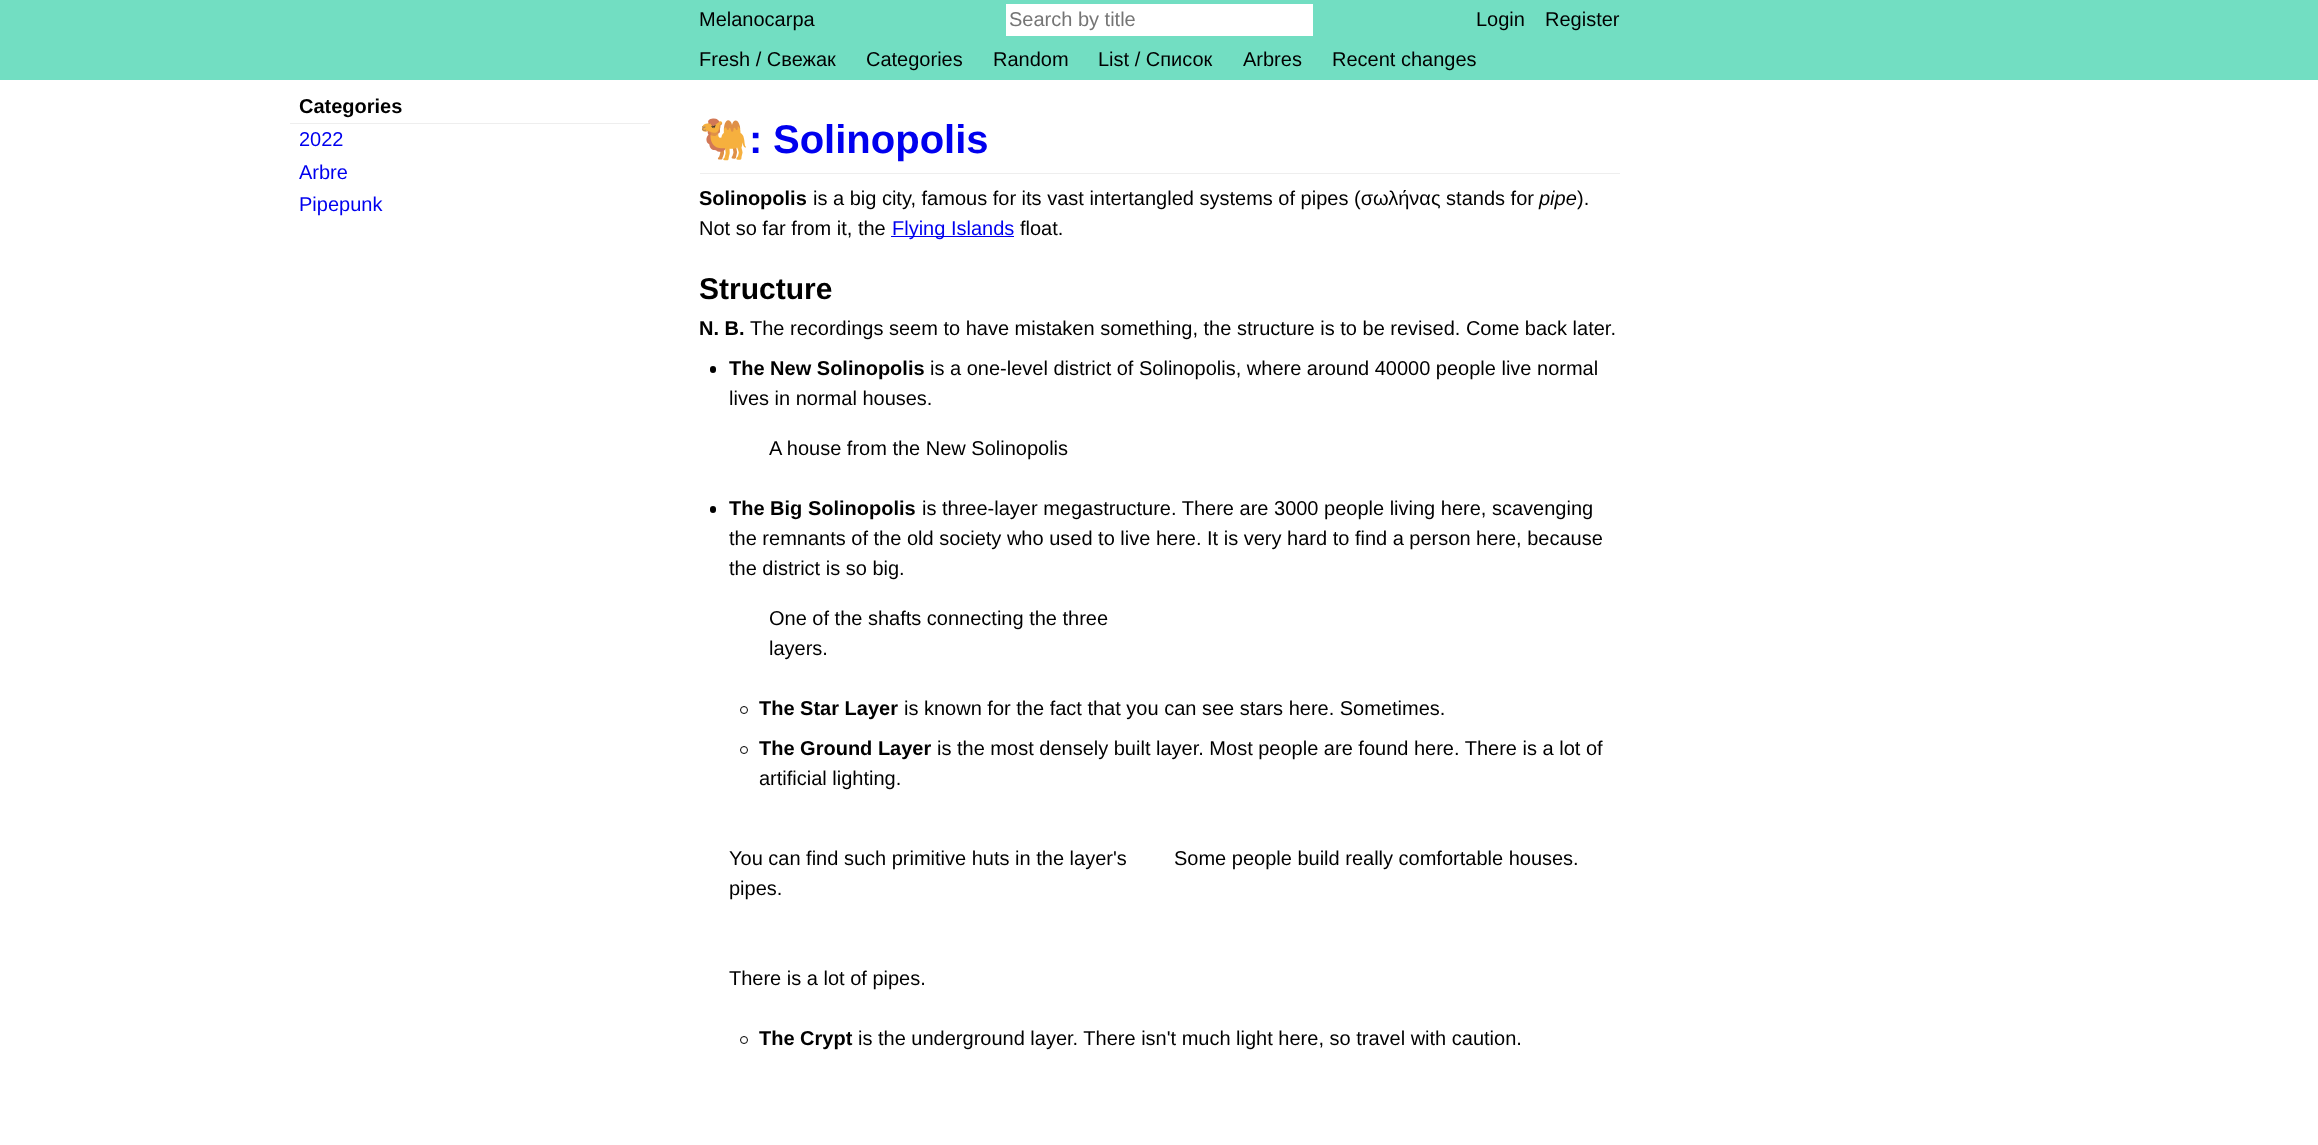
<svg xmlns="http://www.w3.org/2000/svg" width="2318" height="1145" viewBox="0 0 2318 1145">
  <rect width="100%" height="100%" fill="#ffffff"/>
  <rect x="0" y="0" width="2318" height="80" fill="#72dec2"/>
  <text x="699" y="26" font-family="Liberation Sans" font-size="20" fill="#000000">Melanocarpa</text>
  <rect x="1006" y="4" width="307" height="32" fill="#ffffff"/>
  <text x="1009" y="26" font-family="Liberation Sans" font-size="20" fill="#757575">Search by title</text>
  <text x="1476" y="26" font-family="Liberation Sans" font-size="20" fill="#000000">Login</text>
  <text x="1545" y="26" font-family="Liberation Sans" font-size="20" fill="#000000">Register</text>
  <text x="699" y="66" font-family="Liberation Sans" font-size="20" fill="#000000">Fresh / Свежак</text>
  <text x="866" y="66" font-family="Liberation Sans" font-size="20" fill="#000000">Categories</text>
  <text x="993" y="66" font-family="Liberation Sans" font-size="20" fill="#000000">Random</text>
  <text x="1098" y="66" font-family="Liberation Sans" font-size="20" fill="#000000">List / Список</text>
  <text x="1243" y="66" font-family="Liberation Sans" font-size="20" fill="#000000">Arbres</text>
  <text x="1332" y="66" font-family="Liberation Sans" font-size="20" fill="#000000">Recent changes</text>
  <rect x="290" y="123" width="360" height="1" fill="#eeeeee"/>
  <text x="299" y="113" font-family="Liberation Sans" font-size="20" font-weight="bold" fill="#000000">Categories</text>
  <text x="299" y="146" font-family="Liberation Sans" font-size="20" fill="#0000ee">2022</text>
  <text x="299" y="179" font-family="Liberation Sans" font-size="20" fill="#0000ee">Arbre</text>
  <text x="299" y="211" font-family="Liberation Sans" font-size="20" fill="#0000ee">Pipepunk</text>
  <rect x="700" y="173" width="920" height="1" fill="#eeeeee"/>
  <text x="699" y="153" font-family="Noto Color Emoji" font-size="40" font-weight="bold" fill="#0000ee">🐫</text>
  <text x="749" y="153" font-family="Liberation Sans" font-size="40" font-weight="bold" fill="#0000ee">:</text>
  <text x="773" y="153" font-family="Liberation Sans" font-size="40" font-weight="bold" fill="#0000ee">Solinopolis</text>
  <text x="699" y="205" font-family="Liberation Sans" font-size="20" font-weight="bold" fill="#000000">Solinopolis</text>
  <text x="813" y="205" font-family="Liberation Sans" font-size="20" fill="#000000">is a big city, famous for its vast intertangled systems of pipes (σωλήνας stands for</text>
  <text x="1539" y="205" font-family="Liberation Sans" font-size="20" font-style="italic" fill="#000000">pipe</text>
  <text x="1577" y="205" font-family="Liberation Sans" font-size="20" fill="#000000">).</text>
  <text x="699" y="235" font-family="Liberation Sans" font-size="20" fill="#000000">Not so far from it, the</text>
  <rect x="891" y="236" width="123" height="1" fill="#0000ee"/>
  <text x="892" y="235" font-family="Liberation Sans" font-size="20" fill="#0000ee">Flying Islands</text>
  <text x="1020" y="235" font-family="Liberation Sans" font-size="20" fill="#000000">float.</text>
  <text x="699" y="299" font-family="Liberation Sans" font-size="30" font-weight="bold" fill="#000000">Structure</text>
  <text x="699" y="335" font-family="Liberation Sans" font-size="20" font-weight="bold" fill="#000000">N. B.</text>
  <text x="750" y="335" font-family="Liberation Sans" font-size="20" fill="#000000">The recordings seem to have mistaken something, the structure is to be revised. Come back later.</text>
  <rect x="710" y="366" width="6" height="7" rx="3" fill="#000000"/>
  <text x="729" y="375" font-family="Liberation Sans" font-size="20" font-weight="bold" fill="#000000">The New Solinopolis</text>
  <text x="930" y="375" font-family="Liberation Sans" font-size="20" fill="#000000">is a one-level district of Solinopolis, where around 40000 people live normal</text>
  <text x="729" y="405" font-family="Liberation Sans" font-size="20" fill="#000000">lives in normal houses.</text>
  <text x="769" y="455" font-family="Liberation Sans" font-size="20" fill="#000000">A house from the New Solinopolis</text>
  <rect x="710" y="506" width="6" height="7" rx="3" fill="#000000"/>
  <text x="729" y="515" font-family="Liberation Sans" font-size="20" font-weight="bold" fill="#000000">The Big Solinopolis</text>
  <text x="922" y="515" font-family="Liberation Sans" font-size="20" fill="#000000">is three-layer megastructure. There are 3000 people living here, scavenging</text>
  <text x="729" y="545" font-family="Liberation Sans" font-size="20" fill="#000000">the remnants of the old society who used to live here. It is very hard to find a person here, because</text>
  <text x="729" y="575" font-family="Liberation Sans" font-size="20" fill="#000000">the district is so big.</text>
  <text x="769" y="625" font-family="Liberation Sans" font-size="20" fill="#000000">One of the shafts connecting the three</text>
  <text x="769" y="655" font-family="Liberation Sans" font-size="20" fill="#000000">layers.</text>
  <circle cx="744" cy="710" r="3.5" fill="none" stroke="#000000"/>
  <text x="759" y="715" font-family="Liberation Sans" font-size="20" font-weight="bold" fill="#000000">The Star Layer</text>
  <text x="904" y="715" font-family="Liberation Sans" font-size="20" fill="#000000">is known for the fact that you can see stars here. Sometimes.</text>
  <circle cx="744" cy="750" r="3.5" fill="none" stroke="#000000"/>
  <text x="759" y="755" font-family="Liberation Sans" font-size="20" font-weight="bold" fill="#000000">The Ground Layer</text>
  <text x="937" y="755" font-family="Liberation Sans" font-size="20" fill="#000000">is the most densely built layer. Most people are found here. There is a lot of</text>
  <text x="759" y="785" font-family="Liberation Sans" font-size="20" fill="#000000">artificial lighting.</text>
  <text x="729" y="865" font-family="Liberation Sans" font-size="20" fill="#000000">You can find such primitive huts in the layer's</text>
  <text x="729" y="895" font-family="Liberation Sans" font-size="20" fill="#000000">pipes.</text>
  <text x="1174" y="865" font-family="Liberation Sans" font-size="20" fill="#000000">Some people build really comfortable houses.</text>
  <text x="729" y="985" font-family="Liberation Sans" font-size="20" fill="#000000">There is a lot of pipes.</text>
  <circle cx="744" cy="1040" r="3.5" fill="none" stroke="#000000"/>
  <text x="759" y="1045" font-family="Liberation Sans" font-size="20" font-weight="bold" fill="#000000">The Crypt</text>
  <text x="858" y="1045" font-family="Liberation Sans" font-size="20" fill="#000000">is the underground layer. There isn't much light here, so travel with caution.</text>
</svg>
